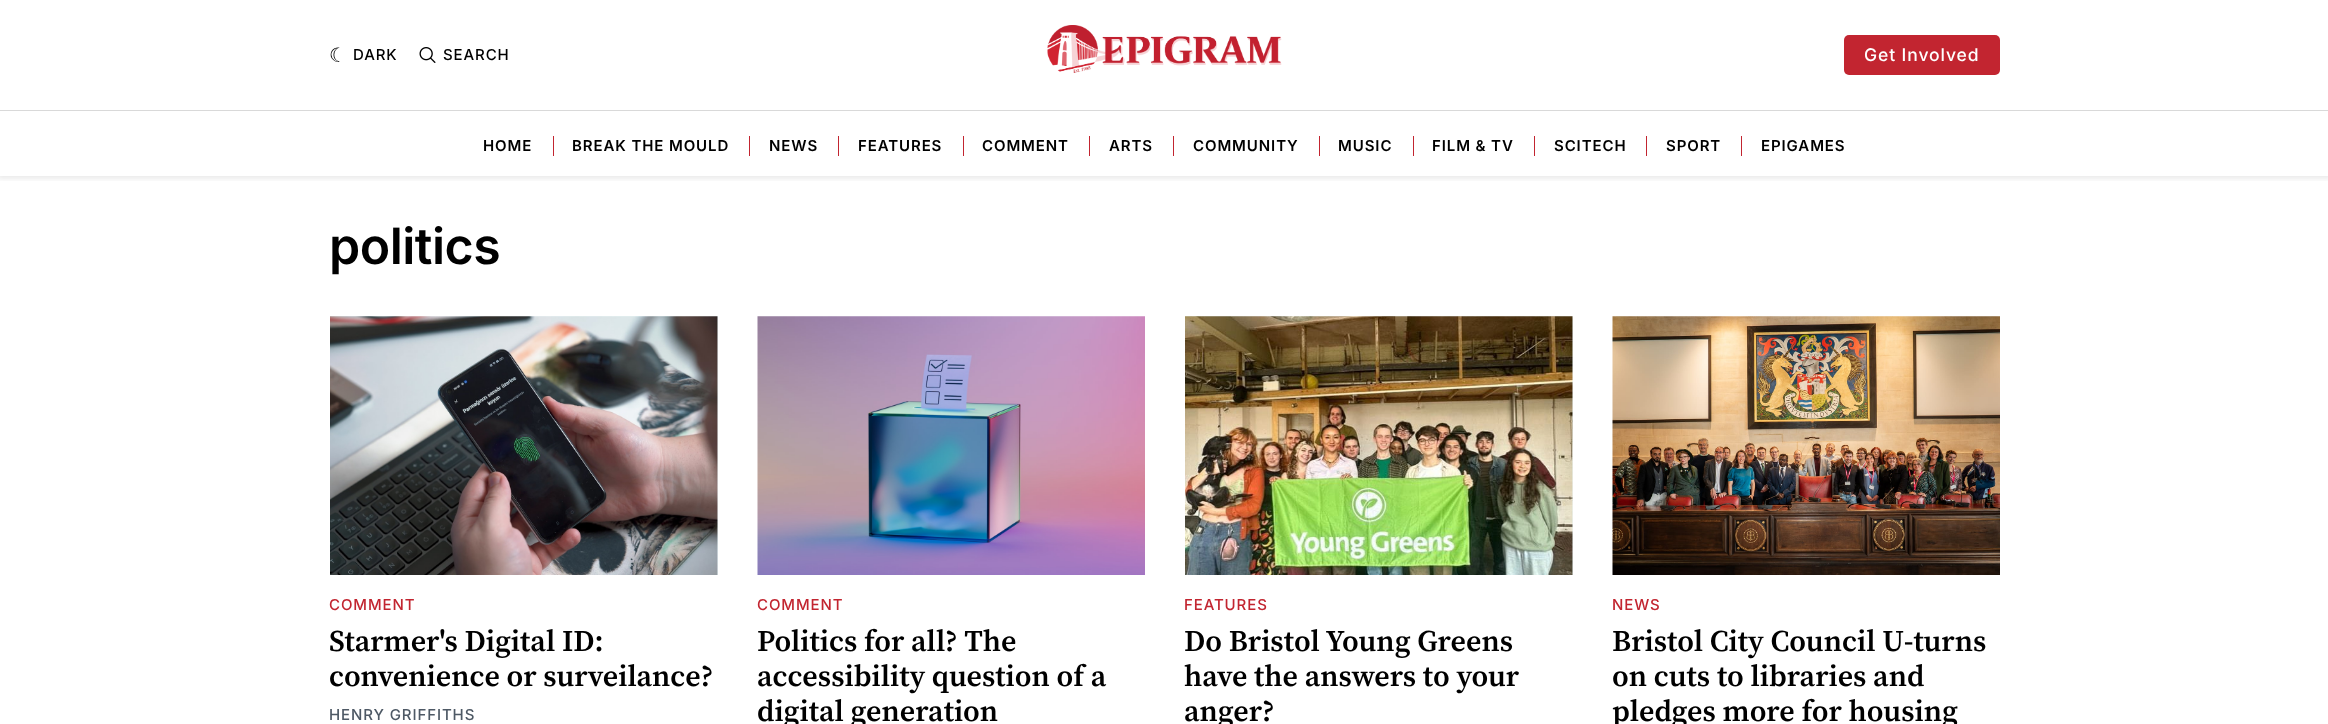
<svg xmlns="http://www.w3.org/2000/svg" width="2328" height="724" viewBox="0 0 2328 724">
  <defs>
    <clipPath id="clip1"><rect x="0" y="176" width="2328" height="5"/></clipPath>
    <filter id="blur1" x="-50%" y="-200%" width="200%" height="500%"><feGaussianBlur stdDeviation="2.5"/></filter>
  </defs>
  <rect width="100%" height="100%" fill="#ffffff"/>
  <g clip-path="url(#clip1)">
    <rect x="-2" y="-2" width="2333" height="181" fill="#000000" fill-opacity="0.08" filter="url(#blur1)"/>
  </g>
  <rect x="0" y="110" width="2328" height="1" fill="#d9d9d9"/>
  <text x="329" y="62" font-family="DejaVu Sans" font-size="20" letter-spacing="0.9" fill="#000000">☾</text>
  <text x="353" y="60" font-family="Inter" font-size="15" font-weight="500" letter-spacing="0.9" fill="#000000">DARK</text>
  <image x="419" y="47" width="17" height="16" href="img1.png"/>
  <text x="443" y="60" font-family="Inter" font-size="15" font-weight="500" letter-spacing="0.9" fill="#000000">SEARCH</text>
  <image x="1047" y="25" width="235" height="48" href="img2.png"/>
  <rect x="1844" y="35" width="156" height="40" rx="5" fill="#c22530"/>
  <text x="1864" y="61" font-family="Inter" font-size="17.5" font-weight="500" letter-spacing="0.9" fill="#ffffff">Get Involved</text>
  <text x="483" y="151" font-family="Inter" font-size="15" font-weight="600" letter-spacing="0.9" fill="#000000">HOME</text>
  <rect x="553" y="136" width="1" height="20" fill="#c22530"/>
  <text x="572" y="151" font-family="Inter" font-size="15" font-weight="600" letter-spacing="0.9" fill="#000000">BREAK THE MOULD</text>
  <rect x="749" y="136" width="1" height="20" fill="#c22530"/>
  <text x="769" y="151" font-family="Inter" font-size="15" font-weight="600" letter-spacing="0.9" fill="#000000">NEWS</text>
  <rect x="838" y="136" width="1" height="20" fill="#c22530"/>
  <text x="858" y="151" font-family="Inter" font-size="15" font-weight="600" letter-spacing="0.9" fill="#000000">FEATURES</text>
  <rect x="963" y="136" width="1" height="20" fill="#c22530"/>
  <text x="982" y="151" font-family="Inter" font-size="15" font-weight="600" letter-spacing="0.9" fill="#000000">COMMENT</text>
  <rect x="1089" y="136" width="1" height="20" fill="#c22530"/>
  <text x="1109" y="151" font-family="Inter" font-size="15" font-weight="600" letter-spacing="0.9" fill="#000000">ARTS</text>
  <rect x="1173" y="136" width="1" height="20" fill="#c22530"/>
  <text x="1193" y="151" font-family="Inter" font-size="15" font-weight="600" letter-spacing="0.9" fill="#000000">COMMUNITY</text>
  <rect x="1319" y="136" width="1" height="20" fill="#c22530"/>
  <text x="1338" y="151" font-family="Inter" font-size="15" font-weight="600" letter-spacing="0.9" fill="#000000">MUSIC</text>
  <rect x="1413" y="136" width="1" height="20" fill="#c22530"/>
  <text x="1432" y="151" font-family="Inter" font-size="15" font-weight="600" letter-spacing="0.9" fill="#000000">FILM &amp; TV</text>
  <rect x="1534" y="136" width="1" height="20" fill="#c22530"/>
  <text x="1554" y="151" font-family="Inter" font-size="15" font-weight="600" letter-spacing="0.9" fill="#000000">SCITECH</text>
  <rect x="1646" y="136" width="1" height="20" fill="#c22530"/>
  <text x="1666" y="151" font-family="Inter" font-size="15" font-weight="600" letter-spacing="0.9" fill="#000000">SPORT</text>
  <rect x="1741" y="136" width="1" height="20" fill="#c22530"/>
  <text x="1761" y="151" font-family="Inter" font-size="15" font-weight="600" letter-spacing="0.9" fill="#000000">EPIGAMES</text>
  <text x="329" y="264" font-family="Inter" font-size="50" font-weight="600" letter-spacing="-0.5" fill="#000000">politics</text>
  <rect x="330" y="316" width="388" height="259" fill="#eff8fa"/>
  <image x="330" y="316" width="388" height="259" href="img3.png"/>
  <text x="329" y="610" font-family="Inter" font-size="15" font-weight="500" letter-spacing="0.9" fill="#c22530">COMMENT</text>
  <text x="329" y="651" font-family="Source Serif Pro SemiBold" font-size="30" font-weight="600" fill="#000000">Starmer's Digital ID:</text>
  <text x="329" y="686" font-family="Source Serif Pro SemiBold" font-size="30" font-weight="600" fill="#000000">convenience or surveilance?</text>
  <text x="329" y="720" font-family="Inter" font-size="15" font-weight="500" letter-spacing="0.9" fill="#4e5965">HENRY GRIFFITHS</text>
  <image x="757" y="316" width="388" height="259" href="img4.png"/>
  <text x="757" y="610" font-family="Inter" font-size="15" font-weight="500" letter-spacing="0.9" fill="#c22530">COMMENT</text>
  <text x="757" y="651" font-family="Source Serif Pro SemiBold" font-size="30" font-weight="600" fill="#000000">Politics for all? The</text>
  <text x="757" y="686" font-family="Source Serif Pro SemiBold" font-size="30" font-weight="600" fill="#000000">accessibility question of a</text>
  <text x="757" y="721" font-family="Source Serif Pro SemiBold" font-size="30" font-weight="600" fill="#000000">digital generation</text>
  <rect x="1185" y="316" width="388" height="259" fill="#eff8fa"/>
  <image x="1185" y="316" width="388" height="259" href="img5.png"/>
  <text x="1184" y="610" font-family="Inter" font-size="15" font-weight="500" letter-spacing="0.9" fill="#c22530">FEATURES</text>
  <text x="1184" y="651" font-family="Source Serif Pro SemiBold" font-size="30" font-weight="600" fill="#000000">Do Bristol Young Greens</text>
  <text x="1184" y="686" font-family="Source Serif Pro SemiBold" font-size="30" font-weight="600" fill="#000000">have the answers to your</text>
  <text x="1184" y="721" font-family="Source Serif Pro SemiBold" font-size="30" font-weight="600" fill="#000000">anger?</text>
  <image x="1612" y="316" width="388" height="259" href="img6.png"/>
  <text x="1612" y="610" font-family="Inter" font-size="15" font-weight="500" letter-spacing="0.9" fill="#c22530">NEWS</text>
  <text x="1612" y="651" font-family="Source Serif Pro SemiBold" font-size="30" font-weight="600" fill="#000000">Bristol City Council U-turns</text>
  <text x="1612" y="686" font-family="Source Serif Pro SemiBold" font-size="30" font-weight="600" fill="#000000">on cuts to libraries and</text>
  <text x="1612" y="721" font-family="Source Serif Pro SemiBold" font-size="30" font-weight="600" fill="#000000">pledges more for housing</text>
</svg>
